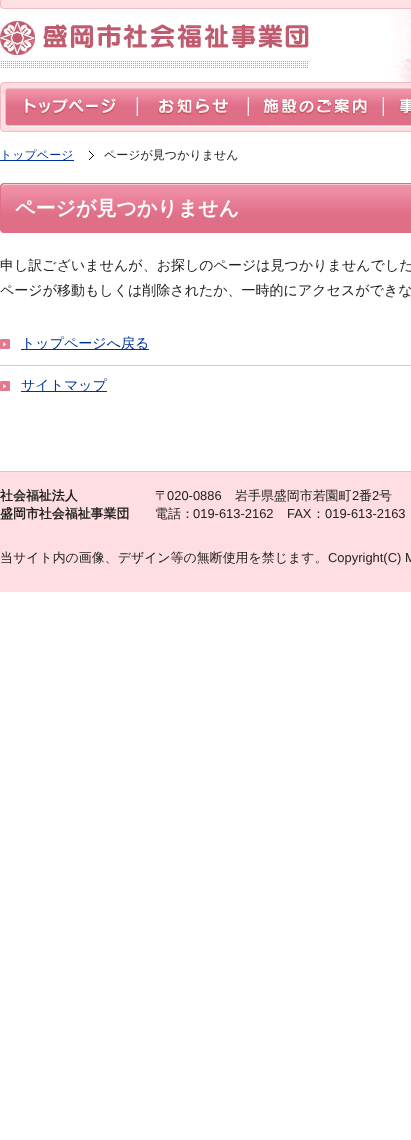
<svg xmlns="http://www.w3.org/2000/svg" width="411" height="1140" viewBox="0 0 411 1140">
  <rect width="100%" height="100%" fill="#ffffff"/>
  <image x="0" y="0" width="411" height="86" href="img1.png"/>
  <image x="0" y="9" width="309" height="59" href="img2.png"/>
  <rect x="0.5" y="82.5" width="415" height="49" rx="3.5" fill="#ffdee3" stroke="#f2bbc3"/>
  <image x="5" y="88" width="406" height="39" href="img3.png"/>
  <rect x="0" y="160" width="74" height="1" fill="#003399"/>
  <text x="0" y="159" font-family="WenQuanYi Zen Hei" font-size="12" font-weight="500" fill="#003399">トップページ</text>
  <image x="89" y="151" width="5" height="9" href="img4.png"/>
  <text x="104" y="159" font-family="WenQuanYi Zen Hei" font-size="12" font-weight="500" fill="#222222">ページが見つかりません</text>
  <image x="0" y="183" width="411" height="50" href="img5.png"/>
  <text x="15" y="215" font-family="WenQuanYi Zen Hei" font-size="20" font-weight="bold" fill="#ffffff">ページが見つかりません</text>
  <text x="0" y="270" font-family="WenQuanYi Zen Hei" font-size="14" font-weight="500" fill="#222222">申し訳ございませんが、お探しのページは見つかりませんでした</text>
  <text x="0" y="295" font-family="WenQuanYi Zen Hei" font-size="14" font-weight="500" fill="#222222">ページが移動もしくは削除されたか、一時的にアクセスができな</text>
  <image x="0" y="339" width="10" height="10" href="img6.png"/>
  <rect x="21" y="349" width="128" height="1" fill="#003399"/>
  <text x="21" y="348" font-family="WenQuanYi Zen Hei" font-size="14" font-weight="500" fill="#003399">トップページへ戻る</text>
  <image x="0" y="381" width="10" height="10" href="img6.png"/>
  <rect x="0" y="365" width="411" height="1" fill="#cccccc"/>
  <rect x="21" y="391" width="86" height="1" fill="#003399"/>
  <text x="21" y="390" font-family="WenQuanYi Zen Hei" font-size="14" font-weight="500" fill="#003399">サイトマップ</text>
  <rect x="0" y="472" width="411" height="120" fill="#ffdee3"/>
  <rect x="0" y="471" width="411" height="1" fill="#f2bbc3"/>
  <text x="0" y="500" font-family="WenQuanYi Zen Hei" font-size="12.95" font-weight="bold" fill="#222222">社会福祉法人</text>
  <text x="0" y="518" font-family="WenQuanYi Zen Hei" font-size="12.95" font-weight="bold" fill="#222222">盛岡市社会福祉事業団</text>
  <text x="155" y="500" font-family="WenQuanYi Zen Hei" font-size="12.95" font-weight="500" fill="#222222">〒</text>
  <text x="167" y="500" font-family="Liberation Sans" font-size="12.95" fill="#222222">020-0886</text>
  <text x="235" y="500" font-family="WenQuanYi Zen Hei" font-size="12.95" font-weight="500" fill="#222222">岩手県盛岡市若園町</text>
  <text x="352" y="500" font-family="Liberation Sans" font-size="12.95" fill="#222222">2</text>
  <text x="359" y="500" font-family="WenQuanYi Zen Hei" font-size="12.95" font-weight="500" fill="#222222">番</text>
  <text x="372" y="500" font-family="Liberation Sans" font-size="12.95" fill="#222222">2</text>
  <text x="379" y="500" font-family="WenQuanYi Zen Hei" font-size="12.95" font-weight="500" fill="#222222">号</text>
  <text x="155" y="518" font-family="WenQuanYi Zen Hei" font-size="12.95" font-weight="500" fill="#222222">電話：</text>
  <text x="193" y="518" font-family="Liberation Sans" font-size="12.95" fill="#222222">019-613-2162</text>
  <text x="287" y="518" font-family="Liberation Sans" font-size="12.95" fill="#222222">FAX</text>
  <text x="312" y="518" font-family="WenQuanYi Zen Hei" font-size="12.95" font-weight="500" fill="#222222">：</text>
  <text x="325" y="518" font-family="Liberation Sans" font-size="12.95" fill="#222222">019-613-2163</text>
  <text x="0" y="562" font-family="WenQuanYi Zen Hei" font-size="12.95" font-weight="500" fill="#222222">当サイト内の画像、デザイン等の無断使用を禁じます。</text>
  <text x="328" y="562" font-family="Liberation Sans" font-size="12.95" fill="#222222">Copyright(C) M</text>
</svg>
